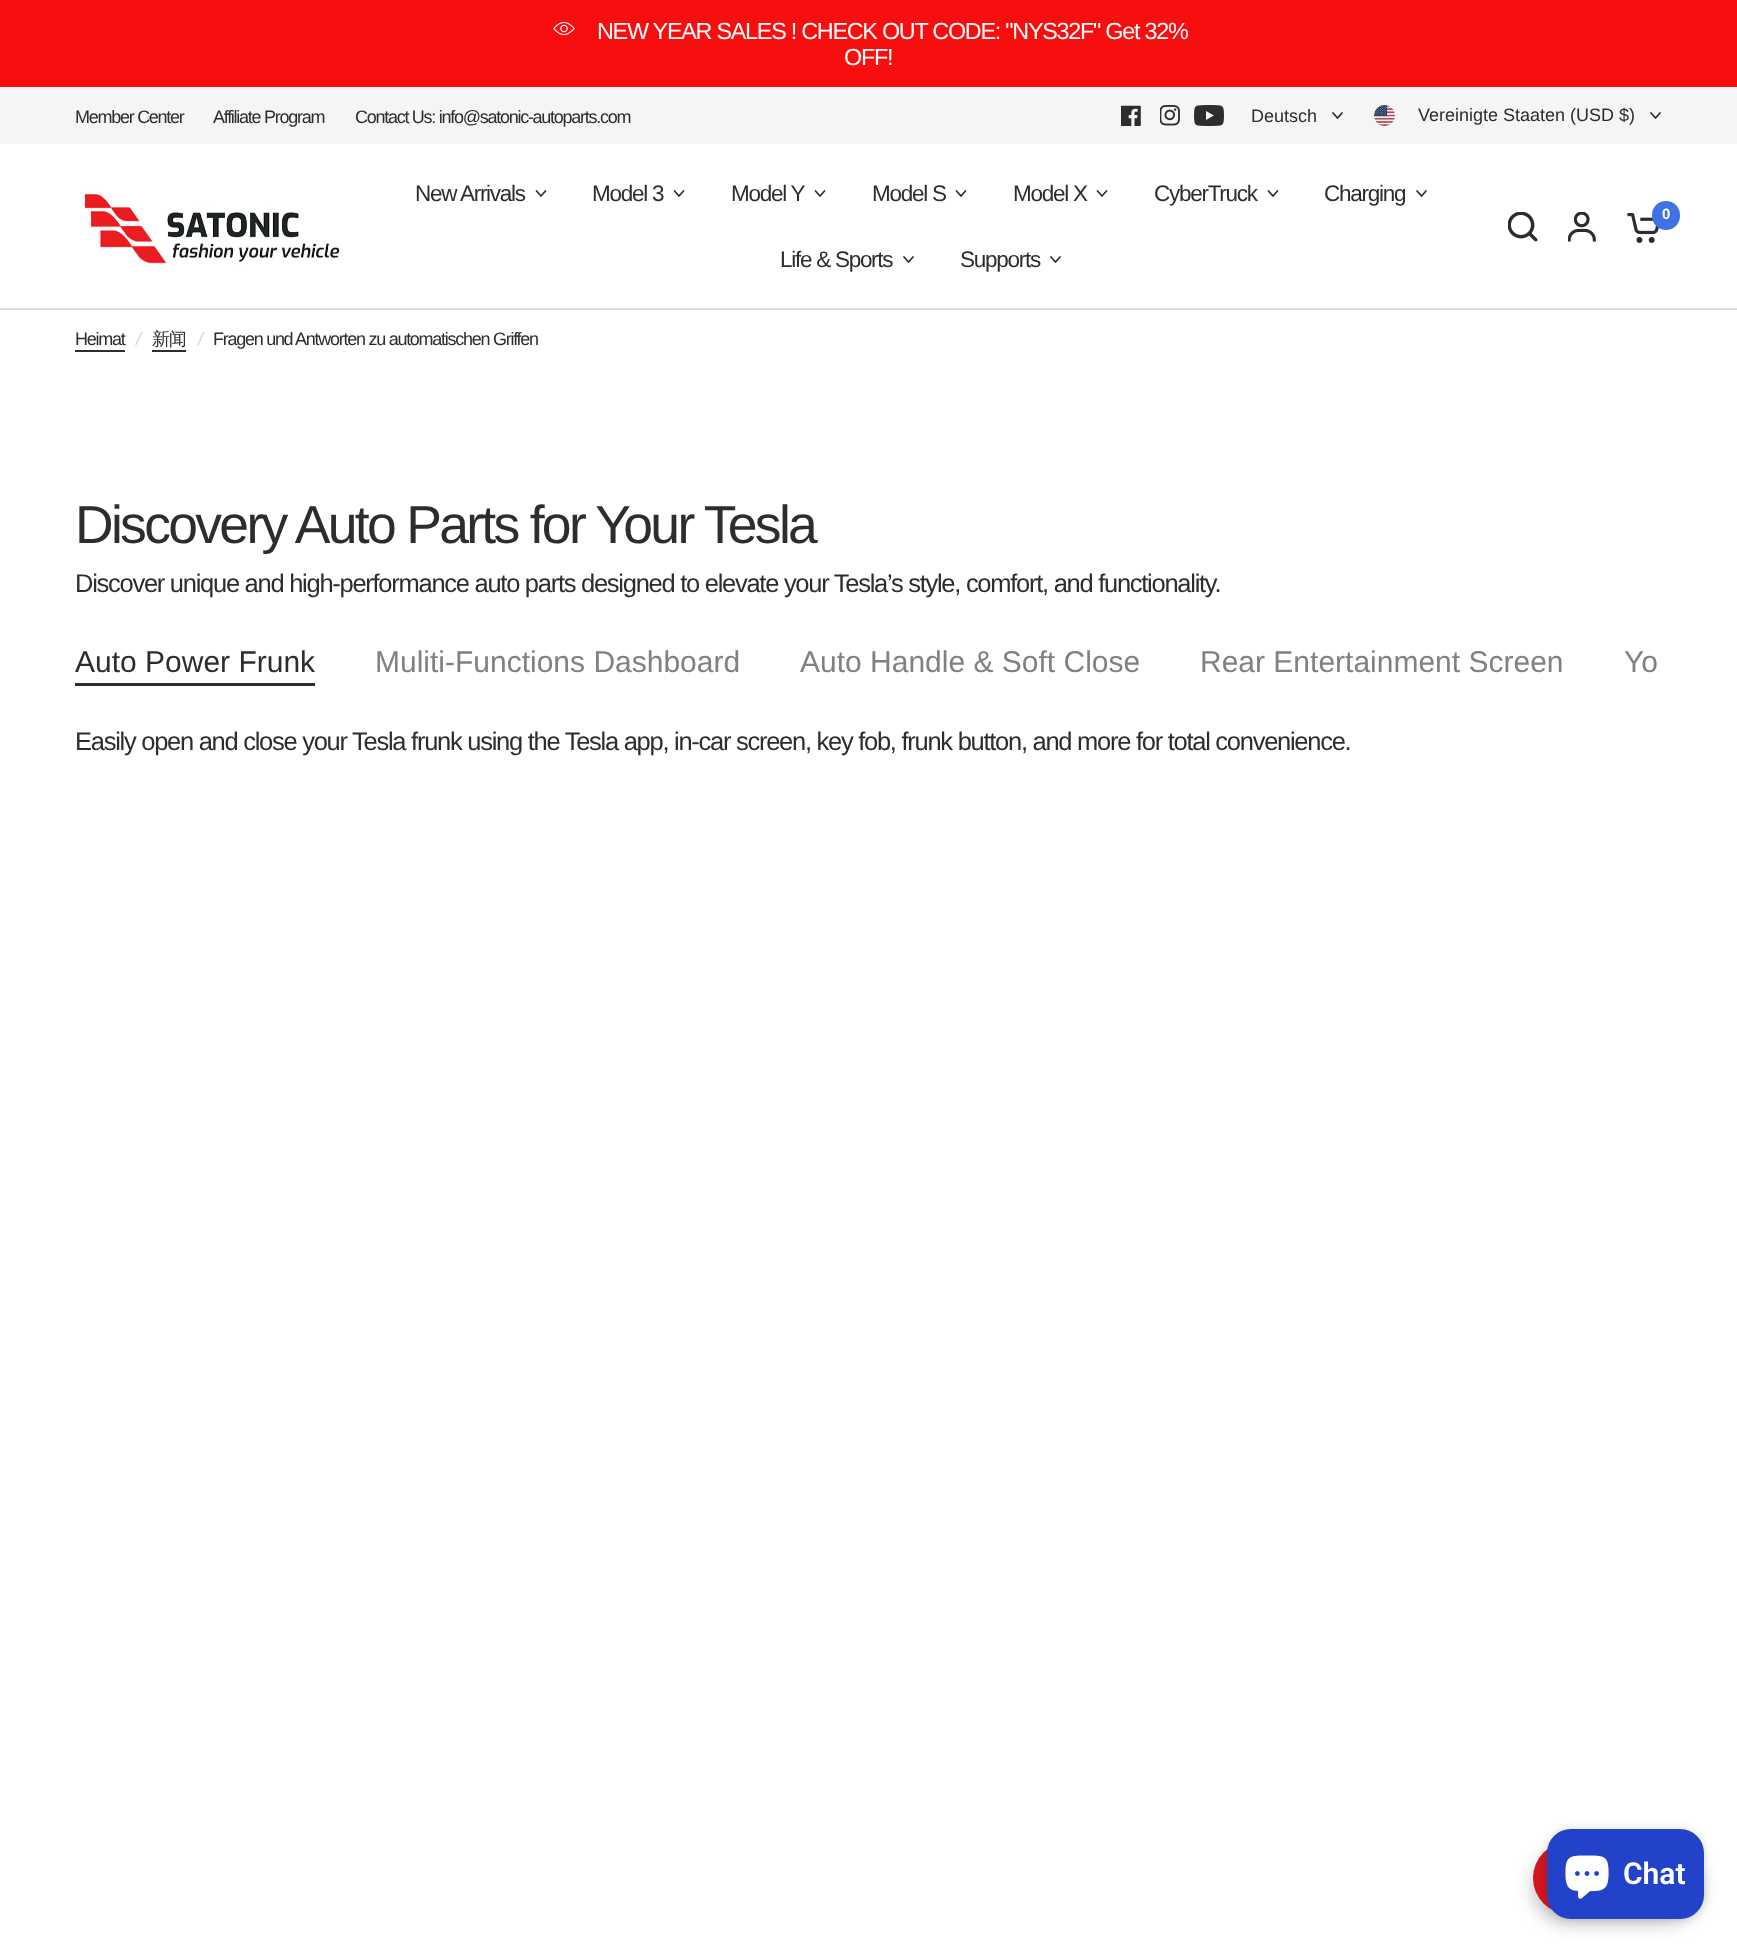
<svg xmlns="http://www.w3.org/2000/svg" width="1737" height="1950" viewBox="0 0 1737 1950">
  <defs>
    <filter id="blur1" x="-50%" y="-200%" width="200%" height="500%"><feGaussianBlur stdDeviation="9"/></filter>
    <filter id="blur2" x="-50%" y="-200%" width="200%" height="500%"><feGaussianBlur stdDeviation="4"/></filter>
  </defs>
  <rect width="100%" height="100%" fill="#ffffff"/>
  <rect x="0" y="0" width="1737" height="87" fill="#f70e0e"/>
  <image x="553" y="21" width="22" height="15" href="img1.png"/>
  <text x="597" y="39" font-family="Liberation Sans" font-size="23.4" letter-spacing="-1.27" fill="#ffffff">NEW YEAR SALES ! CHECK OUT CODE: "NYS32F" Get 32%</text>
  <text x="844" y="65" font-family="Liberation Sans" font-size="23.4" letter-spacing="-1.27" fill="#ffffff">OFF!</text>
  <rect x="0" y="87" width="1737" height="57" fill="#f5f5f5"/>
  <text x="75" y="123" font-family="Liberation Sans" font-size="18" letter-spacing="-1.27" fill="#2c2d2e">Member Center</text>
  <text x="213" y="123" font-family="Liberation Sans" font-size="18" letter-spacing="-1.27" fill="#2c2d2e">Affiliate Program</text>
  <text x="355" y="123" font-family="Liberation Sans" font-size="18" letter-spacing="-1.27" fill="#2c2d2e">Contact Us: info@satonic-autoparts.com</text>
  <image x="1121" y="105" width="20" height="21" href="img2.png"/>
  <image x="1160" y="105" width="20" height="21" href="img3.png"/>
  <image x="1194" y="105" width="30" height="21" href="img4.png"/>
  <text x="1251" y="122" font-family="Liberation Sans" font-size="18" fill="#2c2d2e">Deutsch</text>
  <path d="M1342 113L1337.5 118L1333 113" fill="none" stroke="#2c2d2e" stroke-width="1.7" stroke-linecap="round" stroke-linejoin="round"/>
  <image x="1374" y="105" width="21" height="21" href="img5.png"/>
  <text x="1418" y="121" font-family="Liberation Sans" font-size="18" fill="#2c2d2e">Vereinigte Staaten (USD $)</text>
  <path d="M1660 113L1655.5 118L1651 113" fill="none" stroke="#2c2d2e" stroke-width="1.7" stroke-linecap="round" stroke-linejoin="round"/>
  <image x="83" y="191" width="257" height="74" href="img6.png"/>
  <text x="415" y="201" font-family="Liberation Sans" font-size="22.5" letter-spacing="-1.27" fill="#2c2d2e">New Arrivals</text>
  <path d="M545.5 191L541 196L536.5 191" fill="none" stroke="#2c2d2e" stroke-width="1.7" stroke-linecap="round" stroke-linejoin="round"/>
  <text x="592" y="201" font-family="Liberation Sans" font-size="22.5" letter-spacing="-1.27" fill="#2c2d2e">Model 3</text>
  <path d="M683.5 191L679 196L674.5 191" fill="none" stroke="#2c2d2e" stroke-width="1.7" stroke-linecap="round" stroke-linejoin="round"/>
  <text x="731" y="201" font-family="Liberation Sans" font-size="22.5" letter-spacing="-1.27" fill="#2c2d2e">Model Y</text>
  <path d="M824.5 191L820 196L815.5 191" fill="none" stroke="#2c2d2e" stroke-width="1.7" stroke-linecap="round" stroke-linejoin="round"/>
  <text x="872" y="201" font-family="Liberation Sans" font-size="22.5" letter-spacing="-1.27" fill="#2c2d2e">Model S</text>
  <path d="M965.5 191L961 196L956.5 191" fill="none" stroke="#2c2d2e" stroke-width="1.7" stroke-linecap="round" stroke-linejoin="round"/>
  <text x="1013" y="201" font-family="Liberation Sans" font-size="22.5" letter-spacing="-1.27" fill="#2c2d2e">Model X</text>
  <path d="M1106.5 191L1102 196L1097.5 191" fill="none" stroke="#2c2d2e" stroke-width="1.7" stroke-linecap="round" stroke-linejoin="round"/>
  <text x="1154" y="201" font-family="Liberation Sans" font-size="22.5" letter-spacing="-1.27" fill="#2c2d2e">CyberTruck</text>
  <path d="M1277.5 191L1273 196L1268.5 191" fill="none" stroke="#2c2d2e" stroke-width="1.7" stroke-linecap="round" stroke-linejoin="round"/>
  <text x="1324" y="201" font-family="Liberation Sans" font-size="22.5" letter-spacing="-1.27" fill="#2c2d2e">Charging</text>
  <path d="M1426 191L1421.5 196L1417 191" fill="none" stroke="#2c2d2e" stroke-width="1.7" stroke-linecap="round" stroke-linejoin="round"/>
  <text x="780" y="267" font-family="Liberation Sans" font-size="22.5" letter-spacing="-1.27" fill="#2c2d2e">Life &amp; Sports</text>
  <path d="M913 257L908.5 262L904 257" fill="none" stroke="#2c2d2e" stroke-width="1.7" stroke-linecap="round" stroke-linejoin="round"/>
  <text x="960" y="267" font-family="Liberation Sans" font-size="22.5" letter-spacing="-1.27" fill="#2c2d2e">Supports</text>
  <path d="M1060 257L1055.5 262L1051 257" fill="none" stroke="#2c2d2e" stroke-width="1.7" stroke-linecap="round" stroke-linejoin="round"/>
  <image x="1508" y="212" width="30" height="30" href="img7.png"/>
  <image x="1568" y="212" width="28" height="30" href="img8.png"/>
  <image x="1627" y="213" width="32" height="30" href="img9.png"/>
  <rect x="1652" y="201" width="28" height="29" rx="14" fill="#3f72e5"/>
  <text x="1662" y="219" font-family="Liberation Sans" font-size="15" font-weight="bold" letter-spacing="-1.27" fill="#ffffff">0</text>
  <rect x="0" y="308" width="1737" height="2" fill="#dadce0"/>
  <text x="75" y="345" font-family="Liberation Sans" font-size="18" letter-spacing="-1.27" fill="#2c2d2e">Heimat</text>
  <rect x="75" y="350" width="50" height="2" fill="#2c2d2e"/>
  <text x="136" y="345" font-family="Liberation Sans" font-size="18" font-style="italic" letter-spacing="-1.27" fill="#d5d5d5">/</text>
  <text x="152" y="345" font-family="WenQuanYi Zen Hei" font-size="18" font-weight="500" letter-spacing="-1.27" fill="#2c2d2e">新闻</text>
  <rect x="152" y="350" width="34" height="2" fill="#2c2d2e"/>
  <text x="198" y="345" font-family="Liberation Sans" font-size="18" font-style="italic" letter-spacing="-1.27" fill="#d5d5d5">/</text>
  <text x="213" y="345" font-family="Liberation Sans" font-size="18" letter-spacing="-1.27" fill="#2c2d2e">Fragen und Antworten zu automatischen Griffen</text>
  <text x="75" y="543" font-family="Liberation Sans" font-size="53.5" letter-spacing="-2.7" fill="#2c2d2e">Discovery Auto Parts for Your Tesla</text>
  <text x="75" y="592" font-family="Liberation Sans" font-size="25.5" letter-spacing="-1.27" fill="#2c2d2e">Discover unique and high-performance auto parts designed to elevate your Tesla’s style, comfort, and functionality.</text>
  <text x="75" y="672" font-family="Liberation Sans" font-size="30" fill="#2c2d2e">Auto Power Frunk</text>
  <rect x="75" y="683" width="240" height="3" fill="#2c2d2e"/>
  <text x="375" y="672" font-family="Liberation Sans" font-size="30" fill="#808182">Muliti-Functions Dashboard</text>
  <text x="800" y="672" font-family="Liberation Sans" font-size="30" fill="#808182">Auto Handle &amp; Soft Close</text>
  <text x="1200" y="672" font-family="Liberation Sans" font-size="30" fill="#808182">Rear Entertainment Screen</text>
  <text x="1624" y="672" font-family="Liberation Sans" font-size="30" fill="#808182">Yo</text>
  <text x="75" y="750" font-family="Liberation Sans" font-size="25.5" letter-spacing="-1.27" fill="#2c2d2e">Easily open and close your Tesla frunk using the Tesla app, in-car screen, key fob, frunk button, and more for total convenience.</text>
  <rect x="1533" y="1851" width="168" height="72" rx="36" fill="#000000" fill-opacity="0.25" filter="url(#blur1)"/>
  <rect x="1533" y="1842" width="168" height="72" rx="36" fill="#cf1620"/>
  <rect x="1547" y="1829" width="157" height="90" rx="24" fill="#000000" fill-opacity="0.15" filter="url(#blur2)"/>
  <rect x="1547" y="1829" width="157" height="90" rx="24" fill="#2342ca"/>
  <image x="1565" y="1855" width="44" height="44" href="img10.png"/>
  <text x="1623" y="1884" font-family="Roboto" font-size="30" font-weight="600" fill="#ffffff">Chat</text>
</svg>
